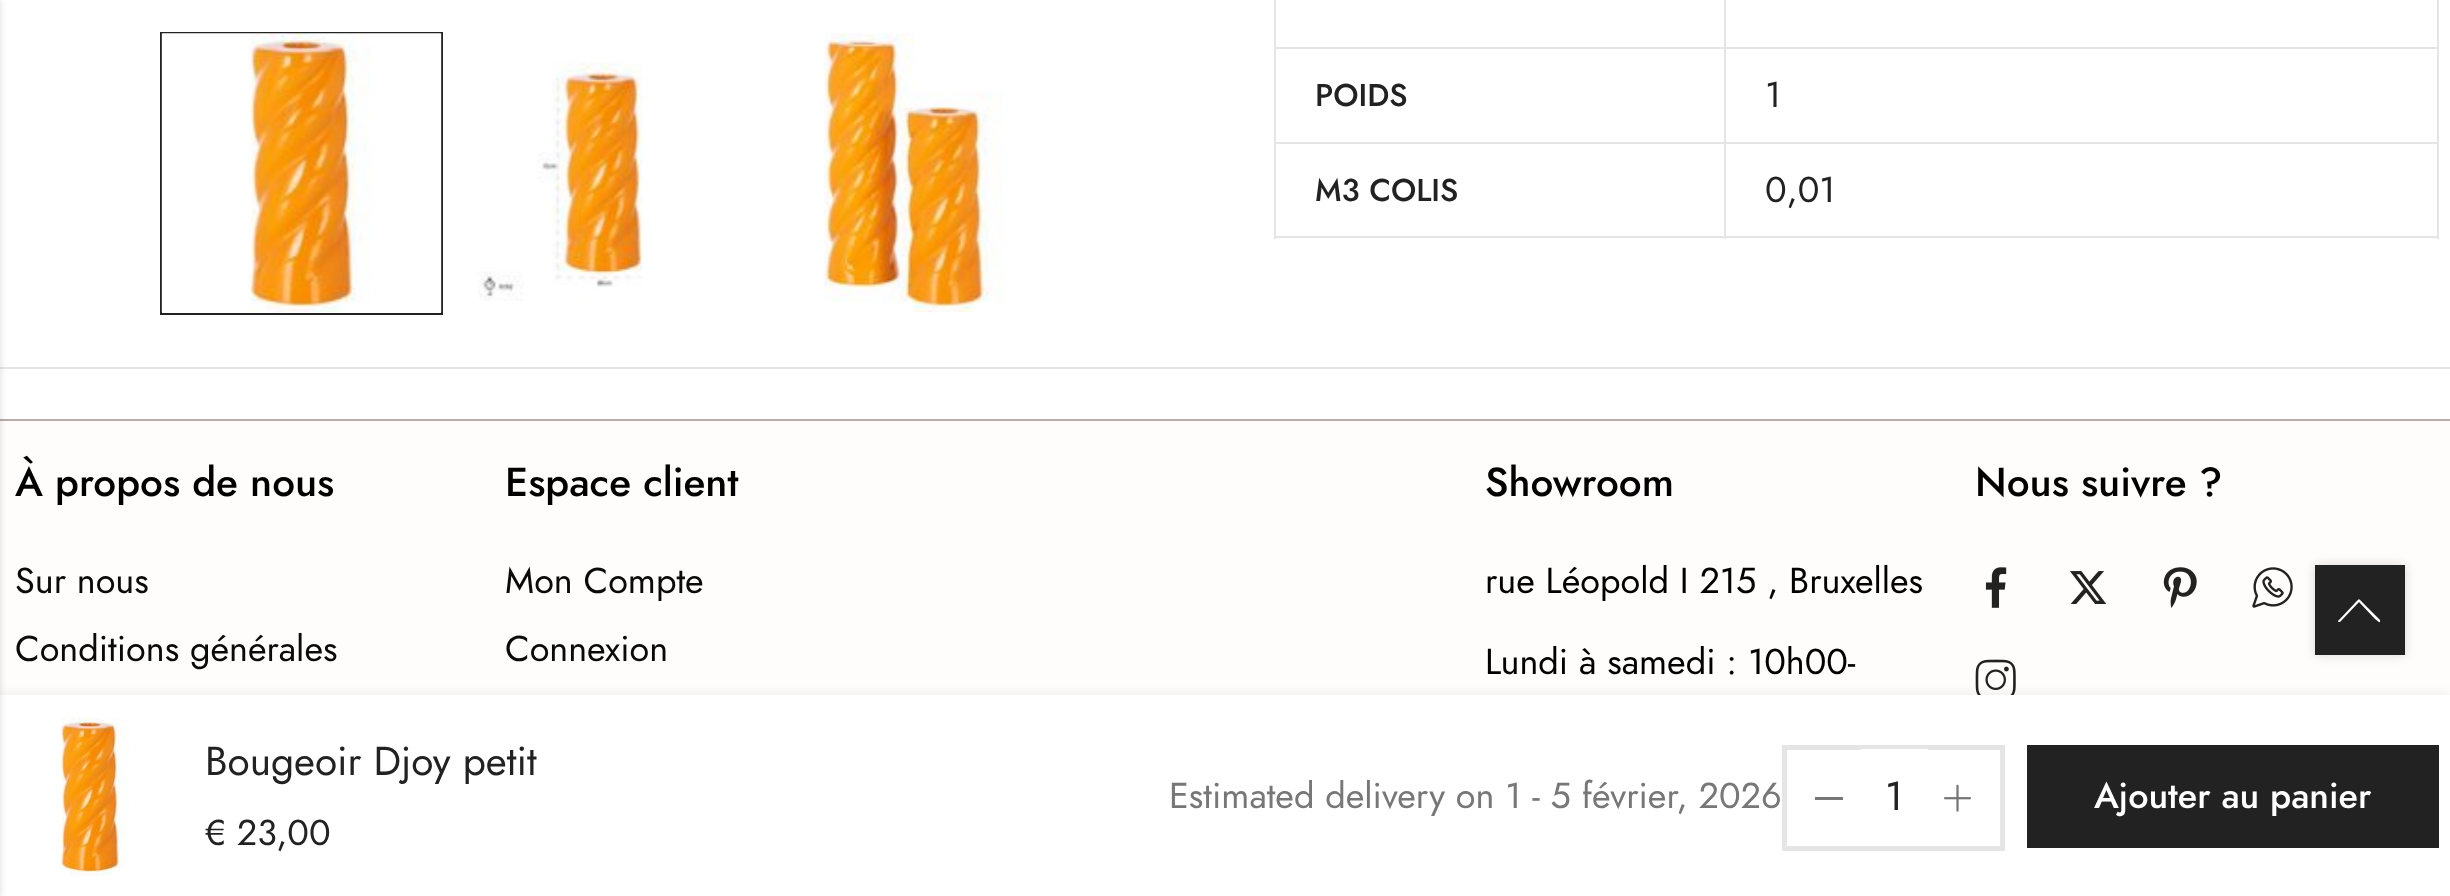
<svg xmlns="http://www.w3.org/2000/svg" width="2450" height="896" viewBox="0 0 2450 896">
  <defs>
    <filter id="blur1" x="-50%" y="-200%" width="200%" height="500%"><feGaussianBlur stdDeviation="5.5"/></filter>
    <filter id="blur2" x="-50%" y="-200%" width="200%" height="500%"><feGaussianBlur stdDeviation="3.5"/></filter>
  </defs>
  <rect width="100%" height="100%" fill="#ffffff"/>
  <rect x="0" y="367" width="2450" height="2" fill="#e5e5e5"/>
  <rect x="0" y="421" width="2450" height="274" fill="#fffdfb"/>
  <rect x="0" y="419" width="2450" height="2" fill="#b7aca8"/>
  <image x="1975" y="659" width="41" height="36" href="img8.png"/>
  <rect x="0" y="693" width="2450" height="203" fill="#000000" fill-opacity="0.06" filter="url(#blur1)"/>
  <rect x="0" y="695" width="2450" height="201" fill="#ffffff"/>
  <rect x="-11" y="0" width="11" height="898" fill="#000000" fill-opacity="0.15" filter="url(#blur2)"/>
  <rect x="161" y="33" width="281" height="281" fill="none" stroke="#222222" stroke-width="2"/>
  <image x="161" y="33" width="281" height="280" href="img1.png"/>
  <image x="478" y="62" width="166" height="239" href="img2.png"/>
  <image x="823" y="33" width="181" height="280" href="img3.png"/>
  <rect x="1274" y="47" width="1165" height="2" fill="#e5e5e5"/>
  <rect x="1274" y="142" width="1165" height="2" fill="#e5e5e5"/>
  <rect x="2437" y="142" width="2" height="97" fill="#e5e5e5"/>
  <rect x="2437" y="0" width="2" height="144" fill="#e5e5e5"/>
  <rect x="1274" y="236" width="1165" height="2" fill="#e5e5e5"/>
  <rect x="1274" y="142" width="2" height="97" fill="#e5e5e5"/>
  <rect x="1274" y="0" width="2" height="144" fill="#e5e5e5"/>
  <text x="1315" y="106" font-family="Jost" font-size="31.5" font-weight="500" fill="#222222">POIDS</text>
  <text x="1765" y="107" font-family="Jost" font-size="36" fill="#222222">1</text>
  <rect x="1724" y="0" width="2" height="239" fill="#e5e5e5"/>
  <text x="1315" y="201" font-family="Jost" font-size="31.5" font-weight="500" fill="#222222">M3 COLIS</text>
  <text x="1765" y="202" font-family="Jost" font-size="36" fill="#222222">0,01</text>
  <text x="15" y="496" font-family="Jost" font-size="40.5" font-weight="500" fill="#000000">À propos de nous</text>
  <text x="15" y="593" font-family="Jost" font-size="36" fill="#0a0a0a">Sur nous</text>
  <text x="15" y="661" font-family="Jost" font-size="36" fill="#0a0a0a">Conditions générales</text>
  <text x="505" y="496" font-family="Jost" font-size="40.5" font-weight="500" fill="#000000">Espace client</text>
  <text x="505" y="593" font-family="Jost" font-size="36" fill="#0a0a0a">Mon Compte</text>
  <text x="505" y="661" font-family="Jost" font-size="36" fill="#0a0a0a">Connexion</text>
  <text x="1485" y="496" font-family="Jost" font-size="40.5" font-weight="500" fill="#000000">Showroom</text>
  <text x="1485" y="593" font-family="Jost" font-size="36" fill="#000000">rue Léopold I 215 , Bruxelles</text>
  <text x="1485" y="674" font-family="Jost" font-size="36" fill="#000000">Lundi à samedi : 10h00-</text>
  <text x="1975" y="496" font-family="Jost" font-size="40.5" font-weight="500" fill="#000000">Nous suivre ?</text>
  <image x="1985" y="567" width="22" height="41" href="img4.png"/>
  <image x="2070" y="571" width="37" height="33" href="img5.png"/>
  <image x="2163" y="567" width="34" height="41" href="img6.png"/>
  <image x="2252" y="567" width="41" height="41" href="img7.png"/>
  <rect x="2315" y="565" width="90" height="90" fill="#000000" fill-opacity="0.15" filter="url(#blur1)"/>
  <rect x="2315" y="565" width="90" height="90" fill="#222222"/>
  <path d="M2338 621C2338 622 2339 622 2340 622L2359 602L2375 619C2377 620 2379 623 2380 622V620L2363 603C2358 598 2360 598 2355 603Z" fill="#ffffff"/>
  <image x="60" y="717" width="69" height="159" href="img9.png"/>
  <text x="205" y="775" font-family="Jost" font-size="40.5" fill="#222222">Bougeoir Djoy petit</text>
  <text x="205" y="845" font-family="Jost" font-size="36" fill="#222222">€ 23,00</text>
  <text x="1169" y="808" font-family="Jost" font-size="36" fill="#777777">Estimated delivery on 1 - 5 février, 2026</text>
  <rect x="1784.5" y="747.5" width="218" height="101" fill="none" stroke="#e5e5e5" stroke-width="5"/>
  <rect x="1815" y="797" width="28" height="3" fill="#777777"/>
  <rect x="1861" y="749" width="67" height="1" fill="#ffffff"/>
  <text x="1885" y="810" font-family="Jost" font-size="40.5" fill="#222222">1</text>
  <image x="1944" y="784" width="27" height="28" href="img10.png"/>
  <rect x="2027" y="745" width="412" height="103" fill="#222222"/>
  <text x="2094" y="808" font-family="Jost" font-size="36" font-weight="500" fill="#ffffff">Ajouter au panier</text>
</svg>
